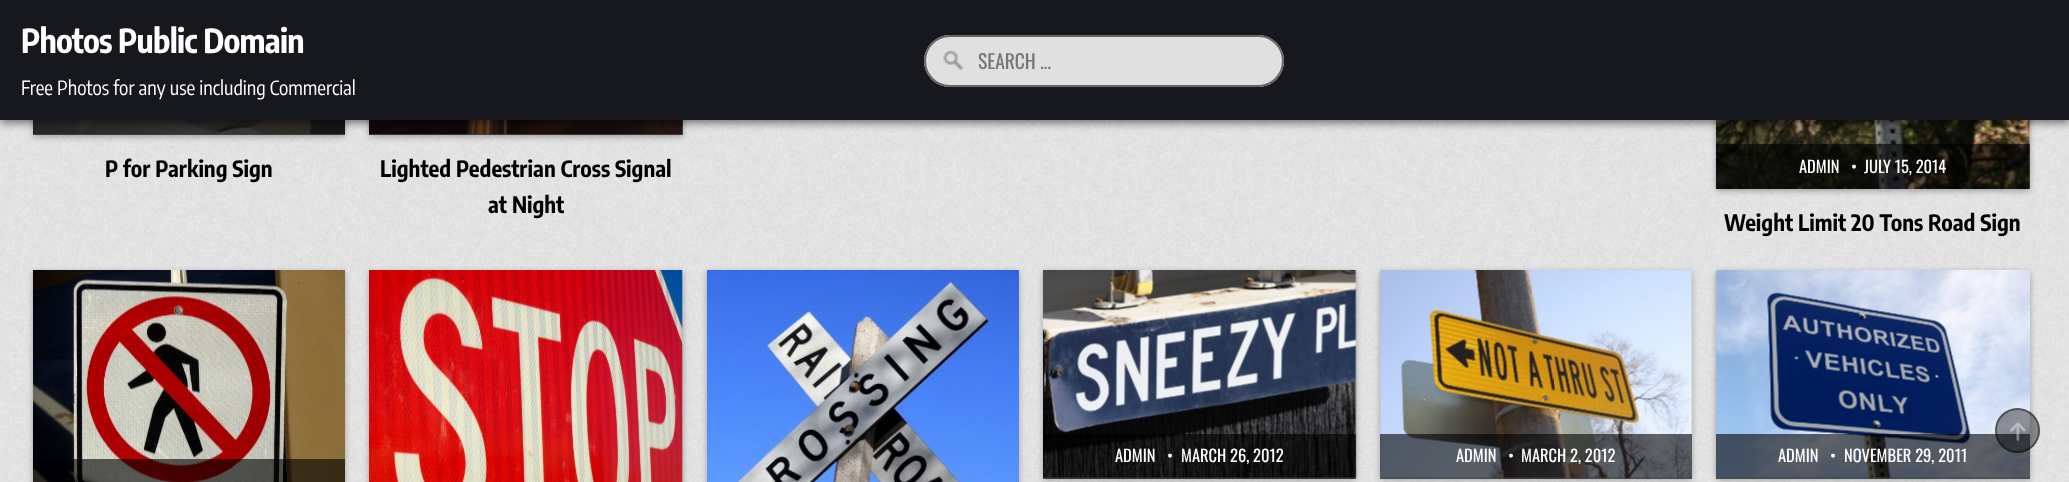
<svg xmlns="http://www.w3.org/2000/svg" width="2069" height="482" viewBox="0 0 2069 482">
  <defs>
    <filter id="blur1" x="-50%" y="-200%" width="200%" height="500%"><feGaussianBlur stdDeviation="3"/></filter>
    <filter id="blur2" x="-50%" y="-200%" width="200%" height="500%"><feGaussianBlur stdDeviation="4"/></filter>
  </defs>
  <rect width="100%" height="100%" fill="#ffffff"/>
  <image x="0" y="120" width="2069" height="362" href="img1.png"/>
  <rect x="33" y="-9" width="312" height="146" fill="#000000" fill-opacity="0.3" filter="url(#blur1)"/>
  <image x="33" y="120" width="312" height="15" href="img3.png"/>
  <rect x="33" y="120" width="312" height="15" fill="#000000" fill-opacity="0.6"/>
  <rect x="369" y="-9" width="314" height="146" fill="#000000" fill-opacity="0.3" filter="url(#blur1)"/>
  <image x="369" y="120" width="314" height="15" href="img4.png"/>
  <rect x="369" y="120" width="314" height="15" fill="#000000" fill-opacity="0.6"/>
  <rect x="1716" y="-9" width="314" height="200" fill="#000000" fill-opacity="0.3" filter="url(#blur1)"/>
  <image x="1716" y="120" width="314" height="69" href="img5.png"/>
  <rect x="0" y="3" width="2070" height="120" fill="#000000" fill-opacity="0.5" filter="url(#blur2)"/>
  <rect x="0" y="0" width="2069" height="120" fill="#16181e"/>
  <text x="21" y="53" font-family="Encode Sans Condensed" font-size="33" font-weight="bold" letter-spacing="-0.75" fill="#ffffff">Photos Public Domain</text>
  <text x="21" y="95" font-family="Encode Sans Condensed" font-size="19.5" fill="#ffffff">Free Photos for any use including Commercial</text>
  <rect x="924" y="35" width="360" height="52" rx="26" fill="#e0e0e0"/>
  <image x="943" y="50" width="21" height="21" href="img2.png"/>
  <rect x="925" y="36" width="358" height="50" rx="25" fill="none" stroke="#666666" stroke-width="2"/>
  <text x="978" y="69" font-family="Oswald" font-size="19.5" fill="#757575">SEARCH …</text>
  <text x="105" y="177" font-family="Encode Sans Condensed" font-size="22.5" font-weight="bold" fill="#000000">P for Parking Sign</text>
  <text x="380" y="177" font-family="Encode Sans Condensed" font-size="22.5" font-weight="bold" fill="#000000">Lighted Pedestrian Cross Signal</text>
  <text x="488" y="213" font-family="Encode Sans Condensed" font-size="22.5" font-weight="bold" fill="#000000">at Night</text>
  <rect x="1716" y="144" width="314" height="45" fill="#000000" fill-opacity="0.6"/>
  <text x="1799" y="173" font-family="Oswald" font-size="16.5" fill="#ffffff">ADMIN</text>
  <text x="1851" y="173" font-family="Oswald" font-size="16.5" fill="#ffffff">•</text>
  <text x="1864" y="173" font-family="Oswald" font-size="16.5" fill="#ffffff">JULY 15, 2014</text>
  <text x="1724" y="231" font-family="Encode Sans Condensed" font-size="22.5" font-weight="bold" fill="#000000">Weight Limit 20 Tons Road Sign</text>
  <rect x="33" y="272" width="312" height="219" fill="#000000" fill-opacity="0.3" filter="url(#blur1)"/>
  <image x="33" y="270" width="312" height="212" href="img6.png"/>
  <rect x="33" y="459" width="312" height="23" fill="#000000" fill-opacity="0.6"/>
  <rect x="369" y="272" width="314" height="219" fill="#000000" fill-opacity="0.3" filter="url(#blur1)"/>
  <image x="369" y="270" width="314" height="212" href="img7.png"/>
  <rect x="707" y="272" width="312" height="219" fill="#000000" fill-opacity="0.3" filter="url(#blur1)"/>
  <image x="707" y="270" width="312" height="212" href="img8.png"/>
  <rect x="1043" y="272" width="313" height="208" fill="#000000" fill-opacity="0.3" filter="url(#blur1)"/>
  <image x="1043" y="270" width="314" height="209" href="img9.png"/>
  <rect x="1043" y="434" width="313" height="45" fill="#000000" fill-opacity="0.6"/>
  <text x="1115" y="462" font-family="Oswald" font-size="16.5" fill="#ffffff">ADMIN</text>
  <text x="1167" y="462" font-family="Oswald" font-size="16.5" fill="#ffffff">•</text>
  <text x="1181" y="462" font-family="Oswald" font-size="16.5" fill="#ffffff">MARCH 26, 2012</text>
  <rect x="1380" y="272" width="312" height="208" fill="#000000" fill-opacity="0.3" filter="url(#blur1)"/>
  <image x="1379" y="270" width="314" height="209" href="img10.png"/>
  <rect x="1380" y="434" width="312" height="45" fill="#000000" fill-opacity="0.6"/>
  <text x="1456" y="462" font-family="Oswald" font-size="16.5" fill="#ffffff">ADMIN</text>
  <text x="1508" y="462" font-family="Oswald" font-size="16.5" fill="#ffffff">•</text>
  <text x="1521" y="462" font-family="Oswald" font-size="16.5" fill="#ffffff">MARCH 2, 2012</text>
  <rect x="1716" y="272" width="314" height="208" fill="#000000" fill-opacity="0.3" filter="url(#blur1)"/>
  <image x="1715" y="270" width="315" height="209" href="img11.png"/>
  <rect x="1716" y="434" width="314" height="45" fill="#000000" fill-opacity="0.6"/>
  <text x="1778" y="462" font-family="Oswald" font-size="16.5" fill="#ffffff">ADMIN</text>
  <text x="1830" y="462" font-family="Oswald" font-size="16.5" fill="#ffffff">•</text>
  <text x="1844" y="462" font-family="Oswald" font-size="16.5" fill="#ffffff">NOVEMBER 29, 2011</text>
  <circle cx="2017.5" cy="430.5" r="22.5" fill="#000000" fill-opacity="0.4"/>
  <circle cx="2017.5" cy="430.5" r="21.5" fill="none" stroke="#000000" stroke-opacity="0.4" stroke-width="2"/>
  <image x="2010" y="422" width="16" height="19" href="img12.png"/>
</svg>
